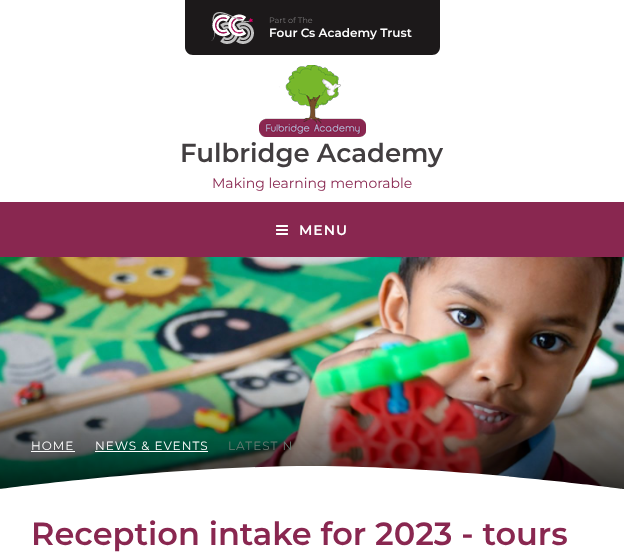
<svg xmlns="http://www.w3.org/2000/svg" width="624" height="559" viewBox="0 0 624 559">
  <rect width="100%" height="100%" fill="#ffffff"/>
  <path d="M185 0H440V47C440 51.5 436.5 55 432 55H193C188.5 55 185 51.5 185 47Z" fill="#1c191a"/>
  <image x="211" y="12" width="43" height="32" href="img1.png"/>
  <text x="269" y="23" font-family="Montserrat" font-size="8" fill="#777576">Part of The</text>
  <text x="269" y="37" font-family="Montserrat" font-size="12" font-weight="600" fill="#ffffff">Four Cs Academy Trust</text>
  <image x="259" y="65" width="107" height="72" href="img2.png"/>
  <text x="180" y="162" font-family="Montserrat" font-size="26" font-weight="600" fill="#423e40">Fulbridge Academy</text>
  <text x="212" y="188" font-family="Montserrat" font-size="14" fill="#892750">Making learning memorable</text>
  <rect x="0" y="202" width="624" height="55" fill="#892750"/>
  <image x="276" y="225" width="12" height="10" href="img3.png"/>
  <text x="299" y="235" font-family="Montserrat" font-size="14" font-weight="600" letter-spacing="1" fill="#ffffff">MENU</text>
  <image x="0" y="257" width="624" height="232" href="img4.png"/>
  <text x="31" y="450" font-family="Montserrat" font-size="12" letter-spacing="1" fill="#ffffff">HOME</text>
  <rect x="31" y="451" width="44" height="1" fill="#ffffff"/>
  <text x="95" y="450" font-family="Montserrat" font-size="12" letter-spacing="1" fill="#ffffff">NEWS &amp; EVENTS</text>
  <rect x="95" y="451" width="113" height="1" fill="#ffffff"/>
  <text x="228" y="450" font-family="Montserrat" font-size="12" letter-spacing="1" fill="#687b73">LATEST N</text>
  <path d="M312 466C174 466 0 489 0 489H312Z" fill="#ffffff"/>
  <path d="M312 466C450 466 624 489 624 489H312Z" fill="#ffffff"/>
  <text x="31" y="545" font-family="Montserrat" font-size="32" font-weight="600" fill="#892750">Reception intake for 2023 - tours</text>
</svg>
